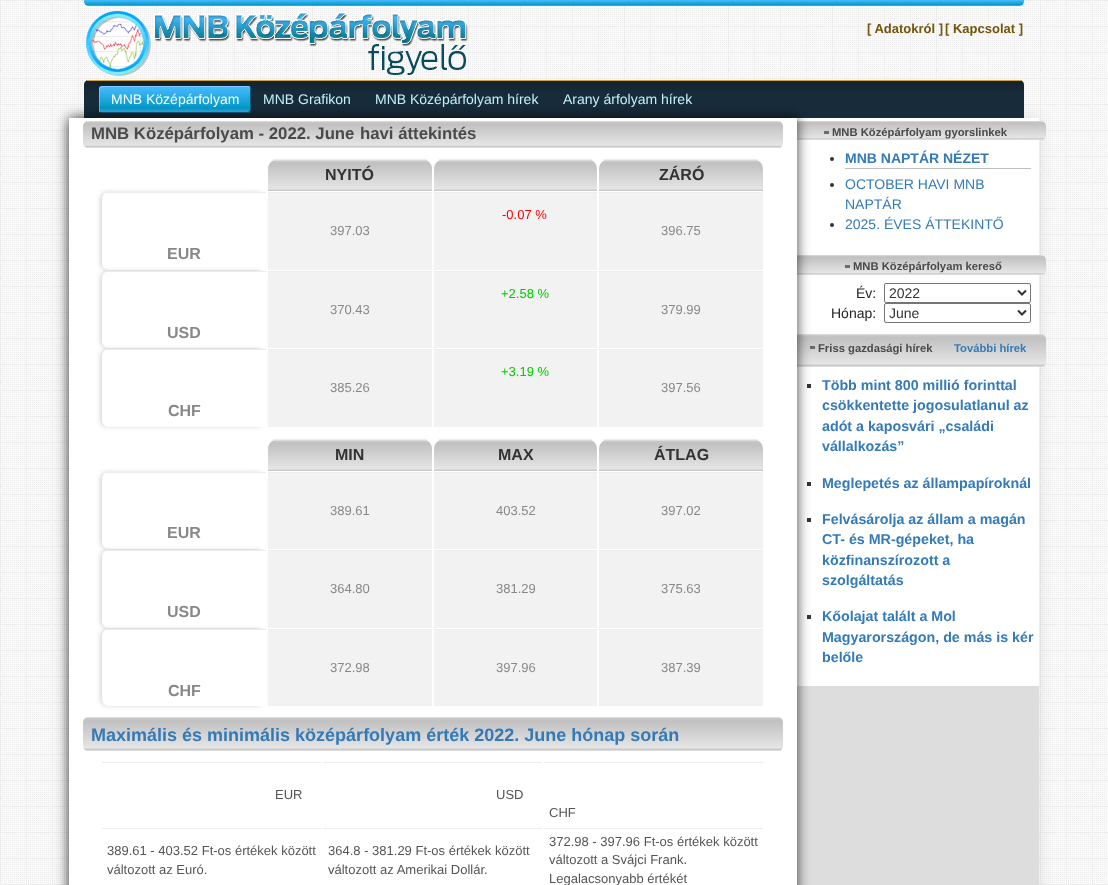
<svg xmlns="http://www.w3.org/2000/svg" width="1108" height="885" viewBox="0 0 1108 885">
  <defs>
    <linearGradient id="g1" gradientUnits="userSpaceOnUse" x1="554" y1="0" x2="554" y2="6"><stop offset="0" stop-color="#49bbff"/><stop offset="0.82" stop-color="#009ac9"/><stop offset="1" stop-color="#49bbff"/></linearGradient>
    <clipPath id="clip1"><path d="M89 80H1019C1022 80 1024 82 1024 85V118H84V85C84 82 86 80 89 80Z"/></clipPath>
    <linearGradient id="g2" gradientUnits="userSpaceOnUse" x1="554" y1="44" x2="554" y2="81"><stop offset="0" stop-color="#12212d"/><stop offset="0.31" stop-color="#172b3a"/></linearGradient>
    <filter id="blur1" x="-50%" y="-200%" width="200%" height="500%"><feGaussianBlur stdDeviation="7.5"/></filter>
    <linearGradient id="g3" gradientUnits="userSpaceOnUse" x1="554" y1="81" x2="554" y2="118"><stop offset="0" stop-color="#12212d"/><stop offset="0.31" stop-color="#172b3a"/></linearGradient>
    <linearGradient id="g4" gradientUnits="userSpaceOnUse" x1="175" y1="86" x2="175" y2="113"><stop offset="0" stop-color="#49bbff"/><stop offset="0.82" stop-color="#009ac9"/><stop offset="1" stop-color="#49bbff"/></linearGradient>
    <clipPath id="clip2"><rect x="790" y="121" width="256" height="19" rx="5"/></clipPath>
    <linearGradient id="g5" gradientUnits="userSpaceOnUse" x1="918" y1="121" x2="918" y2="139"><stop offset="0" stop-color="#e5e5e5"/><stop offset="0.05" stop-color="#c6c6c6"/><stop offset="0.12" stop-color="#c1c1c1"/><stop offset="0.93" stop-color="#e5e5e5"/><stop offset="0.99" stop-color="#c6c6c6"/></linearGradient>
    <clipPath id="clip3"><rect x="790" y="255" width="256" height="20" rx="5"/></clipPath>
    <linearGradient id="g6" gradientUnits="userSpaceOnUse" x1="918" y1="255" x2="918" y2="274"><stop offset="0" stop-color="#e5e5e5"/><stop offset="0.05" stop-color="#c6c6c6"/><stop offset="0.12" stop-color="#c1c1c1"/><stop offset="0.93" stop-color="#e5e5e5"/><stop offset="0.99" stop-color="#c6c6c6"/></linearGradient>
    <clipPath id="clip4"><rect x="790" y="334" width="256" height="33" rx="5"/></clipPath>
    <linearGradient id="g7" gradientUnits="userSpaceOnUse" x1="918" y1="334" x2="918" y2="366"><stop offset="0" stop-color="#e5e5e5"/><stop offset="0.05" stop-color="#c6c6c6"/><stop offset="0.12" stop-color="#c1c1c1"/><stop offset="0.93" stop-color="#e5e5e5"/><stop offset="0.99" stop-color="#c6c6c6"/></linearGradient>
    <filter id="blur2" x="-50%" y="-200%" width="200%" height="500%"><feGaussianBlur stdDeviation="6.5"/></filter>
    <clipPath id="clip5"><rect x="83" y="121" width="700" height="27" rx="5"/></clipPath>
    <linearGradient id="g8" gradientUnits="userSpaceOnUse" x1="433" y1="121" x2="433" y2="147"><stop offset="0" stop-color="#e5e5e5"/><stop offset="0.05" stop-color="#c6c6c6"/><stop offset="0.12" stop-color="#c1c1c1"/><stop offset="0.93" stop-color="#e5e5e5"/><stop offset="0.99" stop-color="#c6c6c6"/></linearGradient>
    <filter id="blur3" x="-50%" y="-200%" width="200%" height="500%"><feGaussianBlur stdDeviation="2"/></filter>
    <clipPath id="clip6"><path d="M278 159H422C427.5 159 432 163.5 432 169V191H268V169C268 163.5 272.5 159 278 159Z"/></clipPath>
    <linearGradient id="g9" gradientUnits="userSpaceOnUse" x1="350" y1="160" x2="350" y2="191"><stop offset="0" stop-color="#e5e5e5"/><stop offset="0.05" stop-color="#c6c6c6"/><stop offset="0.12" stop-color="#c1c1c1"/><stop offset="0.93" stop-color="#e5e5e5"/><stop offset="0.99" stop-color="#c6c6c6"/></linearGradient>
    <clipPath id="clip7"><path d="M444 159H587C592.5 159 597 163.5 597 169V191H434V169C434 163.5 438.5 159 444 159Z"/></clipPath>
    <linearGradient id="g10" gradientUnits="userSpaceOnUse" x1="516" y1="160" x2="516" y2="191"><stop offset="0" stop-color="#e5e5e5"/><stop offset="0.05" stop-color="#c6c6c6"/><stop offset="0.12" stop-color="#c1c1c1"/><stop offset="0.93" stop-color="#e5e5e5"/><stop offset="0.99" stop-color="#c6c6c6"/></linearGradient>
    <clipPath id="clip8"><path d="M609 159H753C758.5 159 763 163.5 763 169V191H599V169C599 163.5 603.5 159 609 159Z"/></clipPath>
    <linearGradient id="g11" gradientUnits="userSpaceOnUse" x1="681" y1="160" x2="681" y2="191"><stop offset="0" stop-color="#e5e5e5"/><stop offset="0.05" stop-color="#c6c6c6"/><stop offset="0.12" stop-color="#c1c1c1"/><stop offset="0.93" stop-color="#e5e5e5"/><stop offset="0.99" stop-color="#c6c6c6"/></linearGradient>
    <clipPath id="clip9"><path d="M278 439H422C427.5 439 432 443.5 432 449V471H268V449C268 443.5 272.5 439 278 439Z"/></clipPath>
    <linearGradient id="g12" gradientUnits="userSpaceOnUse" x1="350" y1="440" x2="350" y2="471"><stop offset="0" stop-color="#e5e5e5"/><stop offset="0.05" stop-color="#c6c6c6"/><stop offset="0.12" stop-color="#c1c1c1"/><stop offset="0.93" stop-color="#e5e5e5"/><stop offset="0.99" stop-color="#c6c6c6"/></linearGradient>
    <clipPath id="clip10"><path d="M444 439H587C592.5 439 597 443.5 597 449V471H434V449C434 443.5 438.5 439 444 439Z"/></clipPath>
    <linearGradient id="g13" gradientUnits="userSpaceOnUse" x1="516" y1="440" x2="516" y2="471"><stop offset="0" stop-color="#e5e5e5"/><stop offset="0.05" stop-color="#c6c6c6"/><stop offset="0.12" stop-color="#c1c1c1"/><stop offset="0.93" stop-color="#e5e5e5"/><stop offset="0.99" stop-color="#c6c6c6"/></linearGradient>
    <clipPath id="clip11"><path d="M609 439H753C758.5 439 763 443.5 763 449V471H599V449C599 443.5 603.5 439 609 439Z"/></clipPath>
    <linearGradient id="g14" gradientUnits="userSpaceOnUse" x1="681" y1="440" x2="681" y2="471"><stop offset="0" stop-color="#e5e5e5"/><stop offset="0.05" stop-color="#c6c6c6"/><stop offset="0.12" stop-color="#c1c1c1"/><stop offset="0.93" stop-color="#e5e5e5"/><stop offset="0.99" stop-color="#c6c6c6"/></linearGradient>
    <clipPath id="clip12"><rect x="83" y="717" width="700" height="34" rx="5"/></clipPath>
    <linearGradient id="g15" gradientUnits="userSpaceOnUse" x1="433" y1="717" x2="433" y2="750"><stop offset="0" stop-color="#e5e5e5"/><stop offset="0.05" stop-color="#c6c6c6"/><stop offset="0.12" stop-color="#c1c1c1"/><stop offset="0.93" stop-color="#e5e5e5"/><stop offset="0.99" stop-color="#c6c6c6"/></linearGradient>
  </defs>
  <rect width="100%" height="100%" fill="#ffffff"/>
  <image x="0" y="0" width="1108" height="885" href="img1.png"/>
  <path d="M84 0H1024V1C1024 4 1022 6 1019 6H89C86 6 84 4 84 1Z" fill="url(#g1)"/>
  <image x="86" y="11" width="382" height="65" href="img2.png"/>
  <text x="867" y="33" font-family="Liberation Sans" font-size="13" font-weight="bold" fill="#745509">[ Adatokról ]</text>
  <text x="945" y="33" font-family="Liberation Sans" font-size="13" font-weight="bold" fill="#745509">[ Kapcsolat ]</text>
  <g clip-path="url(#clip1)">
    <rect x="84" y="80" width="3" height="1" fill="url(#g2)"/>
  </g>
  <rect x="69" y="118" width="970" height="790" fill="#000000" fill-opacity="0.1" filter="url(#blur1)"/>
  <g clip-path="url(#clip1)">
    <rect x="84" y="81" width="940" height="37" fill="url(#g3)"/>
  </g>
  <rect x="87" y="80" width="935" height="1" fill="#d1a529"/>
  <rect x="99" y="86" width="152" height="27" rx="3" fill="url(#g4)"/>
  <path d="M100 112C100 113 101 113 102 113H248C250 113 251 112 251 110V89C251 88 251 87 250 87V102C250 105 252 112 247 112Z" fill="#000000" fill-opacity="0.5"/>
  <path d="M103 87H250C250 86 249 86 248 86H102C100 86 99 87 99 89V110C99 111 99 112 100 112V94C100 91 99 87 103 87Z" fill="#ffffff" fill-opacity="0.3"/>
  <text x="111" y="104" font-family="Liberation Sans" font-size="14" fill="#ffffff">MNB Középárfolyam</text>
  <text x="263" y="104" font-family="Liberation Sans" font-size="14" fill="#c2f0ff">MNB Grafikon</text>
  <text x="375" y="104" font-family="Liberation Sans" font-size="14" fill="#c2f0ff">MNB Középárfolyam hírek</text>
  <text x="563" y="104" font-family="Liberation Sans" font-size="14" fill="#c2f0ff">Arany árfolyam hírek</text>
  <rect x="797" y="118" width="242" height="568" fill="#ffffff"/>
  <g clip-path="url(#clip2)">
    <path d="M795 121H1041C1044 121 1046 123 1046 126V139H790V126C790 123 792 121 795 121Z" fill="url(#g5)"/>
  </g>
  <rect x="793" y="139" width="251" height="1" fill="#dddddd"/>
  <g clip-path="url(#clip3)">
    <path d="M795 255H1041C1044 255 1046 257 1046 260V274H790V260C790 257 792 255 795 255Z" fill="url(#g6)"/>
  </g>
  <rect x="793" y="274" width="251" height="1" fill="#dddddd"/>
  <g clip-path="url(#clip4)">
    <path d="M795 334H1041C1044 334 1046 336 1046 339V366H790V339C790 336 792 334 795 334Z" fill="url(#g7)"/>
  </g>
  <rect x="793" y="366" width="251" height="1" fill="#dddddd"/>
  <rect x="810" y="346" width="5" height="3" fill="#6b6b6b"/>
  <rect x="807" y="384" width="4" height="4" fill="#333333"/>
  <rect x="807" y="482" width="4" height="4" fill="#333333"/>
  <rect x="807" y="518" width="4" height="4" fill="#333333"/>
  <rect x="807" y="615" width="4" height="4" fill="#333333"/>
  <rect x="797" y="686" width="242" height="199" fill="#dddddd"/>
  <rect x="69" y="118" width="728" height="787" fill="#000000" fill-opacity="0.75" filter="url(#blur2)"/>
  <rect x="69" y="118" width="728" height="767" fill="#ffffff"/>
  <g clip-path="url(#clip5)">
    <path d="M88 121H778C781 121 783 123 783 126V147H83V126C83 123 85 121 88 121Z" fill="url(#g8)"/>
  </g>
  <rect x="86" y="147" width="695" height="1" fill="#dddddd"/>
  <text x="91" y="139" font-family="Liberation Sans" font-size="16.75" font-weight="bold" fill="#4a4a4a">MNB Középárfolyam - 2022. June</text>
  <text x="360" y="139" font-family="Liberation Sans" font-size="16.75" font-weight="bold" fill="#4a4a4a">havi áttekintés</text>
  <rect x="268" y="193" width="164" height="77" fill="#f2f2f2"/>
  <rect x="268" y="192" width="164" height="1" fill="#ededed"/>
  <rect x="268" y="272" width="164" height="76" fill="#f2f2f2"/>
  <rect x="268" y="271" width="164" height="1" fill="#ededed"/>
  <rect x="100" y="192" width="164" height="78" rx="7" fill="#000000" fill-opacity="0.15" filter="url(#blur3)"/>
  <g clip-path="url(#clip6)">
    <rect x="268" y="160" width="164" height="31" fill="url(#g9)"/>
  </g>
  <rect x="273" y="159" width="154" height="1" fill="#ededed"/>
  <text x="325" y="180" font-family="Liberation Sans" font-size="16" font-weight="bold" fill="#333333">NYITÓ</text>
  <g clip-path="url(#clip7)">
    <rect x="434" y="160" width="163" height="31" fill="url(#g10)"/>
  </g>
  <rect x="439" y="159" width="153" height="1" fill="#ededed"/>
  <g clip-path="url(#clip8)">
    <rect x="599" y="160" width="164" height="31" fill="url(#g11)"/>
  </g>
  <rect x="604" y="159" width="154" height="1" fill="#ededed"/>
  <text x="659" y="180" font-family="Liberation Sans" font-size="16" font-weight="bold" fill="#333333">ZÁRÓ</text>
  <rect x="434" y="193" width="163" height="77" fill="#f2f2f2"/>
  <rect x="434" y="192" width="163" height="1" fill="#ededed"/>
  <text x="502" y="219" font-family="Liberation Sans" font-size="13" fill="#ff0000">-0.07 %</text>
  <text x="330" y="235" font-family="Liberation Sans" font-size="13" fill="#888888">397.03</text>
  <rect x="599" y="193" width="164" height="77" fill="#f2f2f2"/>
  <rect x="599" y="192" width="164" height="1" fill="#ededed"/>
  <text x="661" y="235" font-family="Liberation Sans" font-size="13" fill="#888888">396.75</text>
  <path d="M109 192H266V270H109C105 270 102 267 102 263V199C102 195 105 192 109 192Z" fill="#ffffff"/>
  <rect x="106" y="192" width="160" height="1" fill="#ededed"/>
  <text x="167" y="259" font-family="Liberation Sans" font-size="16" font-weight="bold" fill="#888888">EUR</text>
  <rect x="434" y="272" width="163" height="76" fill="#f2f2f2"/>
  <rect x="434" y="271" width="163" height="1" fill="#ededed"/>
  <text x="501" y="298" font-family="Liberation Sans" font-size="13" fill="#00cc00">+2.58 %</text>
  <text x="330" y="314" font-family="Liberation Sans" font-size="13" fill="#888888">370.43</text>
  <rect x="599" y="272" width="164" height="76" fill="#f2f2f2"/>
  <rect x="599" y="271" width="164" height="1" fill="#ededed"/>
  <text x="661" y="314" font-family="Liberation Sans" font-size="13" fill="#888888">379.99</text>
  <rect x="268" y="350" width="164" height="77" fill="#f2f2f2"/>
  <rect x="268" y="349" width="164" height="1" fill="#ededed"/>
  <rect x="100" y="271" width="164" height="77" rx="7" fill="#000000" fill-opacity="0.15" filter="url(#blur3)"/>
  <path d="M109 271H266V348H109C105 348 102 345 102 341V278C102 274 105 271 109 271Z" fill="#ffffff"/>
  <rect x="106" y="271" width="160" height="1" fill="#ededed"/>
  <text x="167" y="338" font-family="Liberation Sans" font-size="16" font-weight="bold" fill="#888888">USD</text>
  <rect x="434" y="350" width="163" height="77" fill="#f2f2f2"/>
  <rect x="434" y="349" width="163" height="1" fill="#ededed"/>
  <text x="501" y="376" font-family="Liberation Sans" font-size="13" fill="#00cc00">+3.19 %</text>
  <text x="330" y="392" font-family="Liberation Sans" font-size="13" fill="#888888">385.26</text>
  <rect x="599" y="350" width="164" height="77" fill="#f2f2f2"/>
  <rect x="599" y="349" width="164" height="1" fill="#ededed"/>
  <text x="661" y="392" font-family="Liberation Sans" font-size="13" fill="#888888">397.56</text>
  <rect x="100" y="349" width="164" height="78" rx="7" fill="#000000" fill-opacity="0.15" filter="url(#blur3)"/>
  <path d="M109 349H266V427H109C105 427 102 424 102 420V356C102 352 105 349 109 349Z" fill="#ffffff"/>
  <rect x="106" y="349" width="160" height="1" fill="#ededed"/>
  <text x="168" y="416" font-family="Liberation Sans" font-size="16" font-weight="bold" fill="#888888">CHF</text>
  <rect x="268" y="473" width="164" height="76" fill="#f2f2f2"/>
  <rect x="268" y="472" width="164" height="1" fill="#ededed"/>
  <rect x="268" y="551" width="164" height="77" fill="#f2f2f2"/>
  <rect x="268" y="550" width="164" height="1" fill="#ededed"/>
  <rect x="100" y="472" width="164" height="77" rx="7" fill="#000000" fill-opacity="0.15" filter="url(#blur3)"/>
  <g clip-path="url(#clip9)">
    <rect x="268" y="440" width="164" height="31" fill="url(#g12)"/>
  </g>
  <rect x="273" y="439" width="154" height="1" fill="#ededed"/>
  <text x="335" y="460" font-family="Liberation Sans" font-size="16" font-weight="bold" fill="#333333">MIN</text>
  <g clip-path="url(#clip10)">
    <rect x="434" y="440" width="163" height="31" fill="url(#g13)"/>
  </g>
  <rect x="439" y="439" width="153" height="1" fill="#ededed"/>
  <text x="498" y="460" font-family="Liberation Sans" font-size="16" font-weight="bold" fill="#333333">MAX</text>
  <g clip-path="url(#clip11)">
    <rect x="599" y="440" width="164" height="31" fill="url(#g14)"/>
  </g>
  <rect x="604" y="439" width="154" height="1" fill="#ededed"/>
  <text x="654" y="460" font-family="Liberation Sans" font-size="16" font-weight="bold" fill="#333333">ÁTLAG</text>
  <text x="330" y="515" font-family="Liberation Sans" font-size="13" fill="#888888">389.61</text>
  <rect x="434" y="473" width="163" height="76" fill="#f2f2f2"/>
  <rect x="434" y="472" width="163" height="1" fill="#ededed"/>
  <text x="496" y="515" font-family="Liberation Sans" font-size="13" fill="#888888">403.52</text>
  <rect x="599" y="473" width="164" height="76" fill="#f2f2f2"/>
  <rect x="599" y="472" width="164" height="1" fill="#ededed"/>
  <text x="661" y="515" font-family="Liberation Sans" font-size="13" fill="#888888">397.02</text>
  <path d="M109 472H266V549H109C105 549 102 546 102 542V479C102 475 105 472 109 472Z" fill="#ffffff"/>
  <rect x="106" y="472" width="160" height="1" fill="#ededed"/>
  <text x="167" y="538" font-family="Liberation Sans" font-size="16" font-weight="bold" fill="#888888">EUR</text>
  <text x="330" y="593" font-family="Liberation Sans" font-size="13" fill="#888888">364.80</text>
  <rect x="434" y="551" width="163" height="77" fill="#f2f2f2"/>
  <rect x="434" y="550" width="163" height="1" fill="#ededed"/>
  <text x="496" y="593" font-family="Liberation Sans" font-size="13" fill="#888888">381.29</text>
  <rect x="599" y="551" width="164" height="77" fill="#f2f2f2"/>
  <rect x="599" y="550" width="164" height="1" fill="#ededed"/>
  <text x="661" y="593" font-family="Liberation Sans" font-size="13" fill="#888888">375.63</text>
  <rect x="268" y="630" width="164" height="76" fill="#f2f2f2"/>
  <rect x="268" y="629" width="164" height="1" fill="#ededed"/>
  <rect x="100" y="550" width="164" height="78" rx="7" fill="#000000" fill-opacity="0.15" filter="url(#blur3)"/>
  <path d="M109 550H266V628H109C105 628 102 625 102 621V557C102 553 105 550 109 550Z" fill="#ffffff"/>
  <rect x="106" y="550" width="160" height="1" fill="#ededed"/>
  <text x="167" y="617" font-family="Liberation Sans" font-size="16" font-weight="bold" fill="#888888">USD</text>
  <text x="330" y="672" font-family="Liberation Sans" font-size="13" fill="#888888">372.98</text>
  <rect x="434" y="630" width="163" height="76" fill="#f2f2f2"/>
  <rect x="434" y="629" width="163" height="1" fill="#ededed"/>
  <text x="496" y="672" font-family="Liberation Sans" font-size="13" fill="#888888">397.96</text>
  <rect x="599" y="630" width="164" height="76" fill="#f2f2f2"/>
  <rect x="599" y="629" width="164" height="1" fill="#ededed"/>
  <text x="661" y="672" font-family="Liberation Sans" font-size="13" fill="#888888">387.39</text>
  <rect x="100" y="629" width="164" height="77" rx="7" fill="#000000" fill-opacity="0.15" filter="url(#blur3)"/>
  <path d="M109 629H266V706H109C105 706 102 703 102 699V636C102 632 105 629 109 629Z" fill="#ffffff"/>
  <rect x="106" y="629" width="160" height="1" fill="#ededed"/>
  <text x="168" y="696" font-family="Liberation Sans" font-size="16" font-weight="bold" fill="#888888">CHF</text>
  <g clip-path="url(#clip12)">
    <path d="M88 717H778C781 717 783 719 783 722V750H83V722C83 719 85 717 88 717Z" fill="url(#g15)"/>
  </g>
  <rect x="86" y="750" width="695" height="1" fill="#dddddd"/>
  <text x="91" y="741" font-family="Liberation Sans" font-size="18" font-weight="bold" fill="#337ab7">Maximális és minimális középárfolyam érték 2022. June hónap során</text>
  <rect x="102" y="762" width="219" height="1" fill="#ededed"/>
  <text x="275" y="799" font-family="Liberation Sans" font-size="13" fill="#555555">EUR</text>
  <rect x="323" y="762" width="219" height="1" fill="#ededed"/>
  <text x="496" y="799" font-family="Liberation Sans" font-size="13" fill="#555555">USD</text>
  <rect x="544" y="762" width="219" height="1" fill="#ededed"/>
  <text x="549" y="817" font-family="Liberation Sans" font-size="13" fill="#555555">CHF</text>
  <rect x="102" y="828" width="219" height="1" fill="#ededed"/>
  <text x="107" y="855" font-family="Liberation Sans" font-size="13" fill="#555555">389.61 - 403.52 Ft-os értékek között</text>
  <text x="107" y="874" font-family="Liberation Sans" font-size="13" fill="#555555">változott az Euró.</text>
  <rect x="323" y="828" width="219" height="1" fill="#ededed"/>
  <text x="328" y="855" font-family="Liberation Sans" font-size="13" fill="#555555">364.8 - 381.29 Ft-os értékek között</text>
  <text x="328" y="874" font-family="Liberation Sans" font-size="13" fill="#555555">változott az Amerikai Dollár.</text>
  <rect x="544" y="828" width="219" height="1" fill="#ededed"/>
  <text x="549" y="846" font-family="Liberation Sans" font-size="13" fill="#555555">372.98 - 397.96 Ft-os értékek között</text>
  <text x="549" y="864" font-family="Liberation Sans" font-size="13" fill="#555555">változott a Svájci Frank.</text>
  <text x="549" y="883" font-family="Liberation Sans" font-size="13" fill="#555555">Legalacsonyabb értékét</text>
  <rect x="824" y="131" width="5" height="3" fill="#6b6b6b"/>
  <text x="832" y="136" font-family="Liberation Sans" font-size="11.25" font-weight="bold" fill="#4a4a4a">MNB Középárfolyam gyorslinkek</text>
  <rect x="845" y="168" width="186" height="1" fill="#c0c0c0"/>
  <circle cx="832" cy="159" r="2" fill="#333333"/>
  <text x="845" y="163" font-family="Liberation Sans" font-size="14" font-weight="bold" fill="#337ab7">MNB NAPTÁR NÉZET</text>
  <circle cx="832" cy="185" r="2" fill="#333333"/>
  <text x="845" y="189" font-family="Liberation Sans" font-size="14" fill="#337ab7">OCTOBER HAVI MNB</text>
  <text x="845" y="209" font-family="Liberation Sans" font-size="14" fill="#337ab7">NAPTÁR</text>
  <circle cx="832" cy="225" r="2" fill="#333333"/>
  <text x="845" y="229" font-family="Liberation Sans" font-size="14" fill="#337ab7">2025. ÉVES ÁTTEKINTŐ</text>
  <rect x="845" y="265" width="5" height="3" fill="#6b6b6b"/>
  <text x="853" y="270" font-family="Liberation Sans" font-size="11.25" font-weight="bold" fill="#4a4a4a">MNB Középárfolyam kereső</text>
  <text x="856" y="298" font-family="Liberation Sans" font-size="14" fill="#222222">Év:</text>
  <rect x="884.5" y="283.5" width="146" height="19" rx="1.5" fill="none" stroke="#767676"/>
  <path d="M1018 290.5L1022 294.5L1026 290.5" fill="none" stroke="#333333" stroke-width="2"/>
  <text x="889" y="298" font-family="Liberation Sans" font-size="14" fill="#333333">2022</text>
  <text x="831" y="318" font-family="Liberation Sans" font-size="14" fill="#222222">Hónap:</text>
  <rect x="884.5" y="303.5" width="146" height="19" rx="1.5" fill="none" stroke="#767676"/>
  <path d="M1018 310.5L1022 314.5L1026 310.5" fill="none" stroke="#333333" stroke-width="2"/>
  <text x="889" y="318" font-family="Liberation Sans" font-size="14" fill="#333333">June</text>
  <text x="818" y="352" font-family="Liberation Sans" font-size="11.25" font-weight="bold" fill="#4a4a4a">Friss gazdasági hírek</text>
  <text x="954" y="352" font-family="Liberation Sans" font-size="11.25" font-weight="bold" fill="#337ab7">További hírek</text>
  <text x="822" y="390" font-family="Liberation Sans" font-size="14.25" font-weight="bold" fill="#337ab7">Több mint 800 millió forinttal</text>
  <text x="822" y="410" font-family="Liberation Sans" font-size="14.25" font-weight="bold" fill="#337ab7">csökkentette jogosulatlanul az</text>
  <text x="822" y="431" font-family="Liberation Sans" font-size="14.25" font-weight="bold" fill="#337ab7">adót a kaposvári „családi</text>
  <text x="822" y="451" font-family="Liberation Sans" font-size="14.25" font-weight="bold" fill="#337ab7">vállalkozás”</text>
  <text x="822" y="488" font-family="Liberation Sans" font-size="14.25" font-weight="bold" fill="#337ab7">Meglepetés az állampapíroknál</text>
  <text x="822" y="524" font-family="Liberation Sans" font-size="14.25" font-weight="bold" fill="#337ab7">Felvásárolja az állam a magán</text>
  <text x="822" y="544" font-family="Liberation Sans" font-size="14.25" font-weight="bold" fill="#337ab7">CT- és MR-gépeket, ha</text>
  <text x="822" y="565" font-family="Liberation Sans" font-size="14.25" font-weight="bold" fill="#337ab7">közfinanszírozott a</text>
  <text x="822" y="585" font-family="Liberation Sans" font-size="14.25" font-weight="bold" fill="#337ab7">szolgáltatás</text>
  <text x="822" y="621" font-family="Liberation Sans" font-size="14.25" font-weight="bold" fill="#337ab7">Kőolajat talált a Mol</text>
  <text x="822" y="642" font-family="Liberation Sans" font-size="14.25" font-weight="bold" fill="#337ab7">Magyarországon, de más is kér</text>
  <text x="822" y="662" font-family="Liberation Sans" font-size="14.25" font-weight="bold" fill="#337ab7">belőle</text>
</svg>
